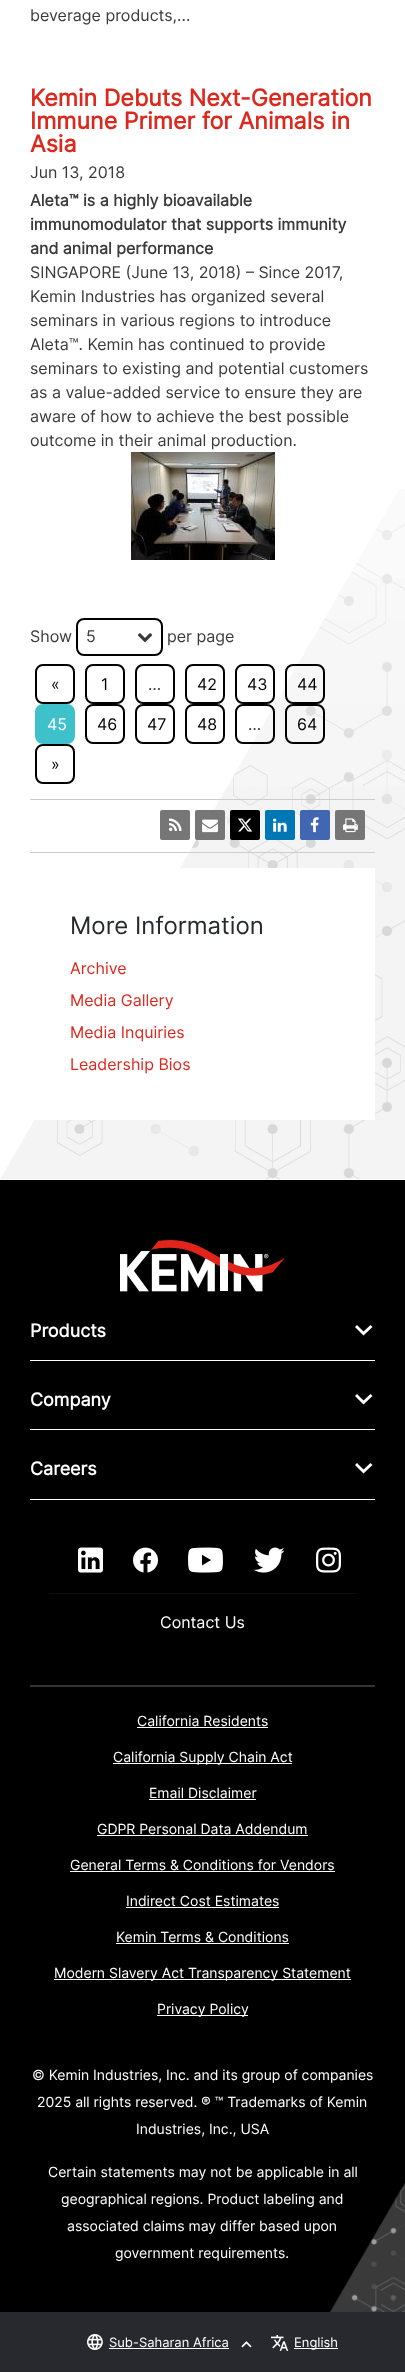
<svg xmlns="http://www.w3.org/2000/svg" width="405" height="2372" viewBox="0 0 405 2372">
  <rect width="100%" height="100%" fill="#ffffff"/>
  <image x="0" y="489" width="405" height="691" href="img1.png"/>
  <text x="30" y="21" font-family="Inter" font-size="16" fill="#3a3a3a">beverage products,...</text>
  <text x="30" y="106" font-family="Inter" font-size="23.25" font-weight="bold" fill="#dc291e">Kemin Debuts Next-Generation</text>
  <text x="30" y="129" font-family="Inter" font-size="23.25" font-weight="bold" fill="#dc291e">Immune Primer for Animals in</text>
  <text x="30" y="152" font-family="Inter" font-size="23.25" font-weight="bold" fill="#dc291e">Asia</text>
  <text x="30" y="178" font-family="Inter" font-size="16" fill="#3a3a3a">Jun 13, 2018</text>
  <text x="30" y="206" font-family="Inter" font-size="16" font-weight="bold" fill="#3a3a3a">Aleta™ is a highly bioavailable</text>
  <text x="30" y="230" font-family="Inter" font-size="16" font-weight="bold" fill="#3a3a3a">immunomodulator that supports immunity</text>
  <text x="30" y="254" font-family="Inter" font-size="16" font-weight="bold" fill="#3a3a3a">and animal performance</text>
  <text x="30" y="278" font-family="Inter" font-size="16" fill="#3a3a3a">SINGAPORE (June 13, 2018) – Since 2017,</text>
  <text x="30" y="302" font-family="Inter" font-size="16" fill="#3a3a3a">Kemin Industries has organized several</text>
  <text x="30" y="326" font-family="Inter" font-size="16" fill="#3a3a3a">seminars in various regions to introduce</text>
  <text x="30" y="350" font-family="Inter" font-size="16" fill="#3a3a3a">Aleta™. Kemin has continued to provide</text>
  <text x="30" y="374" font-family="Inter" font-size="16" fill="#3a3a3a">seminars to existing and potential customers</text>
  <text x="30" y="398" font-family="Inter" font-size="16" fill="#3a3a3a">as a value-added service to ensure they are</text>
  <text x="30" y="422" font-family="Inter" font-size="16" fill="#3a3a3a">aware of how to achieve the best possible</text>
  <text x="30" y="446" font-family="Inter" font-size="16" fill="#3a3a3a">outcome in their animal production.</text>
  <image x="131" y="452" width="144" height="108" href="img2.png"/>
  <text x="30" y="642" font-family="Inter" font-size="16" fill="#3a3a3a">Show</text>
  <rect x="77" y="619" width="85" height="36" rx="7" fill="none" stroke="#000000" stroke-width="2"/>
  <text x="86" y="642" font-family="Inter" font-size="16" fill="#3a3a3a">5</text>
  <image x="137" y="633" width="16" height="10" href="img3.png"/>
  <text x="167" y="642" font-family="Inter" font-size="16" fill="#3a3a3a">per page</text>
  <rect x="36" y="665" width="38" height="38" rx="7" fill="none" stroke="#000000" stroke-width="2"/>
  <text x="51" y="690" font-family="Inter" font-size="16" fill="#000000">«</text>
  <rect x="86" y="665" width="38" height="38" rx="7" fill="none" stroke="#000000" stroke-width="2"/>
  <text x="101" y="690" font-family="Inter" font-size="16" fill="#000000">1</text>
  <rect x="186" y="665" width="38" height="38" rx="7" fill="none" stroke="#000000" stroke-width="2"/>
  <text x="197" y="690" font-family="Inter" font-size="16" fill="#000000">42</text>
  <rect x="236" y="665" width="38" height="38" rx="7" fill="none" stroke="#000000" stroke-width="2"/>
  <text x="247" y="690" font-family="Inter" font-size="16" fill="#000000">43</text>
  <rect x="286" y="665" width="38" height="38" rx="7" fill="none" stroke="#000000" stroke-width="2"/>
  <text x="297" y="690" font-family="Inter" font-size="16" fill="#000000">44</text>
  <rect x="136" y="665" width="38" height="38" rx="7" fill="none" stroke="#000000" stroke-width="2"/>
  <text x="148" y="690" font-family="Inter" font-size="16" fill="#3a3a3a">…</text>
  <rect x="36" y="705" width="38" height="38" rx="7" fill="#3fc1cb" stroke="#3fc1cb" stroke-width="2"/>
  <text x="47" y="730" font-family="Inter" font-size="16" fill="#ffffff">45</text>
  <rect x="86" y="705" width="38" height="38" rx="7" fill="none" stroke="#000000" stroke-width="2"/>
  <text x="97" y="730" font-family="Inter" font-size="16" fill="#000000">46</text>
  <rect x="136" y="705" width="38" height="38" rx="7" fill="none" stroke="#000000" stroke-width="2"/>
  <text x="147" y="730" font-family="Inter" font-size="16" fill="#000000">47</text>
  <rect x="186" y="705" width="38" height="38" rx="7" fill="none" stroke="#000000" stroke-width="2"/>
  <text x="197" y="730" font-family="Inter" font-size="16" fill="#000000">48</text>
  <rect x="236" y="705" width="38" height="38" rx="7" fill="none" stroke="#000000" stroke-width="2"/>
  <text x="248" y="730" font-family="Inter" font-size="16" fill="#3a3a3a">…</text>
  <rect x="286" y="705" width="38" height="38" rx="7" fill="none" stroke="#000000" stroke-width="2"/>
  <text x="297" y="730" font-family="Inter" font-size="16" fill="#000000">64</text>
  <rect x="36" y="745" width="38" height="38" rx="7" fill="none" stroke="#000000" stroke-width="2"/>
  <text x="51" y="770" font-family="Inter" font-size="16" fill="#000000">»</text>
  <rect x="30" y="799" width="345" height="1" fill="#cccccc"/>
  <rect x="30" y="852" width="345" height="1" fill="#cccccc"/>
  <rect x="160" y="810" width="30" height="30" rx="2" fill="#767676"/>
  <image x="169" y="818" width="13" height="13" href="img4.png"/>
  <rect x="195" y="810" width="30" height="30" rx="2" fill="#767676"/>
  <image x="202" y="819" width="16" height="14" href="img5.png"/>
  <rect x="230" y="810" width="30" height="30" rx="2" fill="#000000"/>
  <image x="238" y="818" width="15" height="14" href="img6.png"/>
  <rect x="265" y="810" width="30" height="30" rx="2" fill="#0077b5"/>
  <image x="273" y="818" width="14" height="14" href="img7.png"/>
  <rect x="300" y="810" width="30" height="30" rx="2" fill="#4267b2"/>
  <image x="310" y="817" width="9" height="16" href="img8.png"/>
  <rect x="335" y="810" width="30" height="30" rx="2" fill="#767676"/>
  <image x="343" y="818" width="15" height="15" href="img9.png"/>
  <rect x="34" y="868" width="341" height="252" fill="#ffffff"/>
  <text x="70" y="934" font-family="Inter" font-size="24" fill="#27292e">More Information</text>
  <text x="70" y="974" font-family="Inter" font-size="16" fill="#dc291e">Archive</text>
  <text x="70" y="1006" font-family="Inter" font-size="16" fill="#dc291e">Media Gallery</text>
  <text x="70" y="1038" font-family="Inter" font-size="16" fill="#dc291e">Media Inquiries</text>
  <text x="70" y="1070" font-family="Inter" font-size="16" fill="#dc291e">Leadership Bios</text>
  <rect x="0" y="1180" width="405" height="1132" fill="#000000"/>
  <image x="120" y="1240" width="165" height="52" href="img10.png"/>
  <rect x="30" y="1360" width="345" height="1" fill="#ffffff"/>
  <text x="30" y="1337" font-family="Inter" font-size="18" font-weight="bold" fill="#ffffff">Products</text>
  <path d="M357 1325L363.5 1331.5L370.5 1325L372.5 1327L363.5 1335.5L355 1327Z" fill="#ffffff"/>
  <rect x="30" y="1429" width="345" height="1" fill="#ffffff"/>
  <text x="30" y="1406" font-family="Inter" font-size="18" font-weight="bold" fill="#ffffff">Company</text>
  <path d="M357 1394L363.5 1400.5L370.5 1394L372.5 1396L363.5 1404.5L355 1396Z" fill="#ffffff"/>
  <rect x="30" y="1499" width="345" height="1" fill="#ffffff"/>
  <text x="30" y="1475" font-family="Inter" font-size="18" font-weight="bold" fill="#ffffff">Careers</text>
  <path d="M357 1463L363.5 1469.5L370.5 1463L372.5 1465L363.5 1473.5L355 1465Z" fill="#ffffff"/>
  <image x="78" y="1547" width="25" height="26" href="img11.png"/>
  <image x="133" y="1547" width="25" height="26" href="img12.png"/>
  <image x="188" y="1547" width="35" height="26" href="img13.png"/>
  <image x="254" y="1547" width="31" height="26" href="img14.png"/>
  <image x="316" y="1547" width="25" height="26" href="img15.png"/>
  <rect x="49" y="1593" width="307" height="1" fill="#0f0f0f"/>
  <text x="160" y="1628" font-family="Inter" font-size="16" fill="#ffffff">Contact Us</text>
  <rect x="30" y="1685" width="345" height="2" fill="#333333"/>
  <text x="137" y="1726" font-family="Inter" font-size="14" fill="#ffffff">California Residents</text>
  <rect x="137" y="1727" width="131" height="1" fill="#ffffff"/>
  <rect x="113" y="1763" width="179" height="1" fill="#ffffff"/>
  <text x="113" y="1762" font-family="Inter" font-size="14" fill="#ffffff">California Supply Chain Act</text>
  <text x="149" y="1798" font-family="Inter" font-size="14" fill="#ffffff">Email Disclaimer</text>
  <rect x="149" y="1799" width="107" height="1" fill="#ffffff"/>
  <text x="97" y="1834" font-family="Inter" font-size="14" fill="#ffffff">GDPR Personal Data Addendum</text>
  <rect x="97" y="1835" width="211" height="1" fill="#ffffff"/>
  <text x="70" y="1870" font-family="Inter" font-size="14" fill="#ffffff">General Terms &amp; Conditions for Vendors</text>
  <rect x="70" y="1871" width="265" height="1" fill="#ffffff"/>
  <text x="126" y="1906" font-family="Inter" font-size="14" fill="#ffffff">Indirect Cost Estimates</text>
  <rect x="126" y="1907" width="153" height="1" fill="#ffffff"/>
  <text x="116" y="1942" font-family="Inter" font-size="14" fill="#ffffff">Kemin Terms &amp; Conditions</text>
  <rect x="116" y="1943" width="173" height="1" fill="#ffffff"/>
  <rect x="54" y="1979" width="297" height="1" fill="#ffffff"/>
  <text x="54" y="1978" font-family="Inter" font-size="14" fill="#ffffff">Modern Slavery Act Transparency Statement</text>
  <rect x="157" y="2015" width="91" height="1" fill="#ffffff"/>
  <text x="157" y="2014" font-family="Inter" font-size="14" fill="#ffffff">Privacy Policy</text>
  <text x="32" y="2080" font-family="Inter" font-size="14" fill="#ffffff">© Kemin Industries, Inc. and its group of companies</text>
  <text x="37" y="2107" font-family="Inter" font-size="14" fill="#ffffff">2025 all rights reserved. ® ™ Trademarks of Kemin</text>
  <text x="136" y="2134" font-family="Inter" font-size="14" fill="#ffffff">Industries, Inc., USA</text>
  <text x="48" y="2177" font-family="Inter" font-size="14" fill="#ffffff">Certain statements may not be applicable in all</text>
  <text x="61" y="2204" font-family="Inter" font-size="14" fill="#ffffff">geographical regions. Product labeling and</text>
  <text x="67" y="2231" font-family="Inter" font-size="14" fill="#ffffff">associated claims may differ based upon</text>
  <text x="115" y="2258" font-family="Inter" font-size="14" fill="#ffffff">government requirements.</text>
  <image x="330" y="2183" width="75" height="129" href="img16.png"/>
  <rect x="0" y="2312" width="405" height="60" fill="#27292e"/>
  <image x="87" y="2334" width="16" height="16" href="img17.png"/>
  <text x="109" y="2347" font-family="Inter" font-size="13" fill="#ffffff">Sub-Saharan Africa</text>
  <rect x="109" y="2348" width="120" height="1" fill="#ffffff"/>
  <image x="241" y="2341" width="11" height="7" href="img18.png"/>
  <image x="271" y="2335" width="18" height="16" href="img19.png"/>
  <rect x="294" y="2348" width="44" height="1" fill="#ffffff"/>
  <text x="294" y="2347" font-family="Inter" font-size="13" fill="#ffffff">English</text>
</svg>
